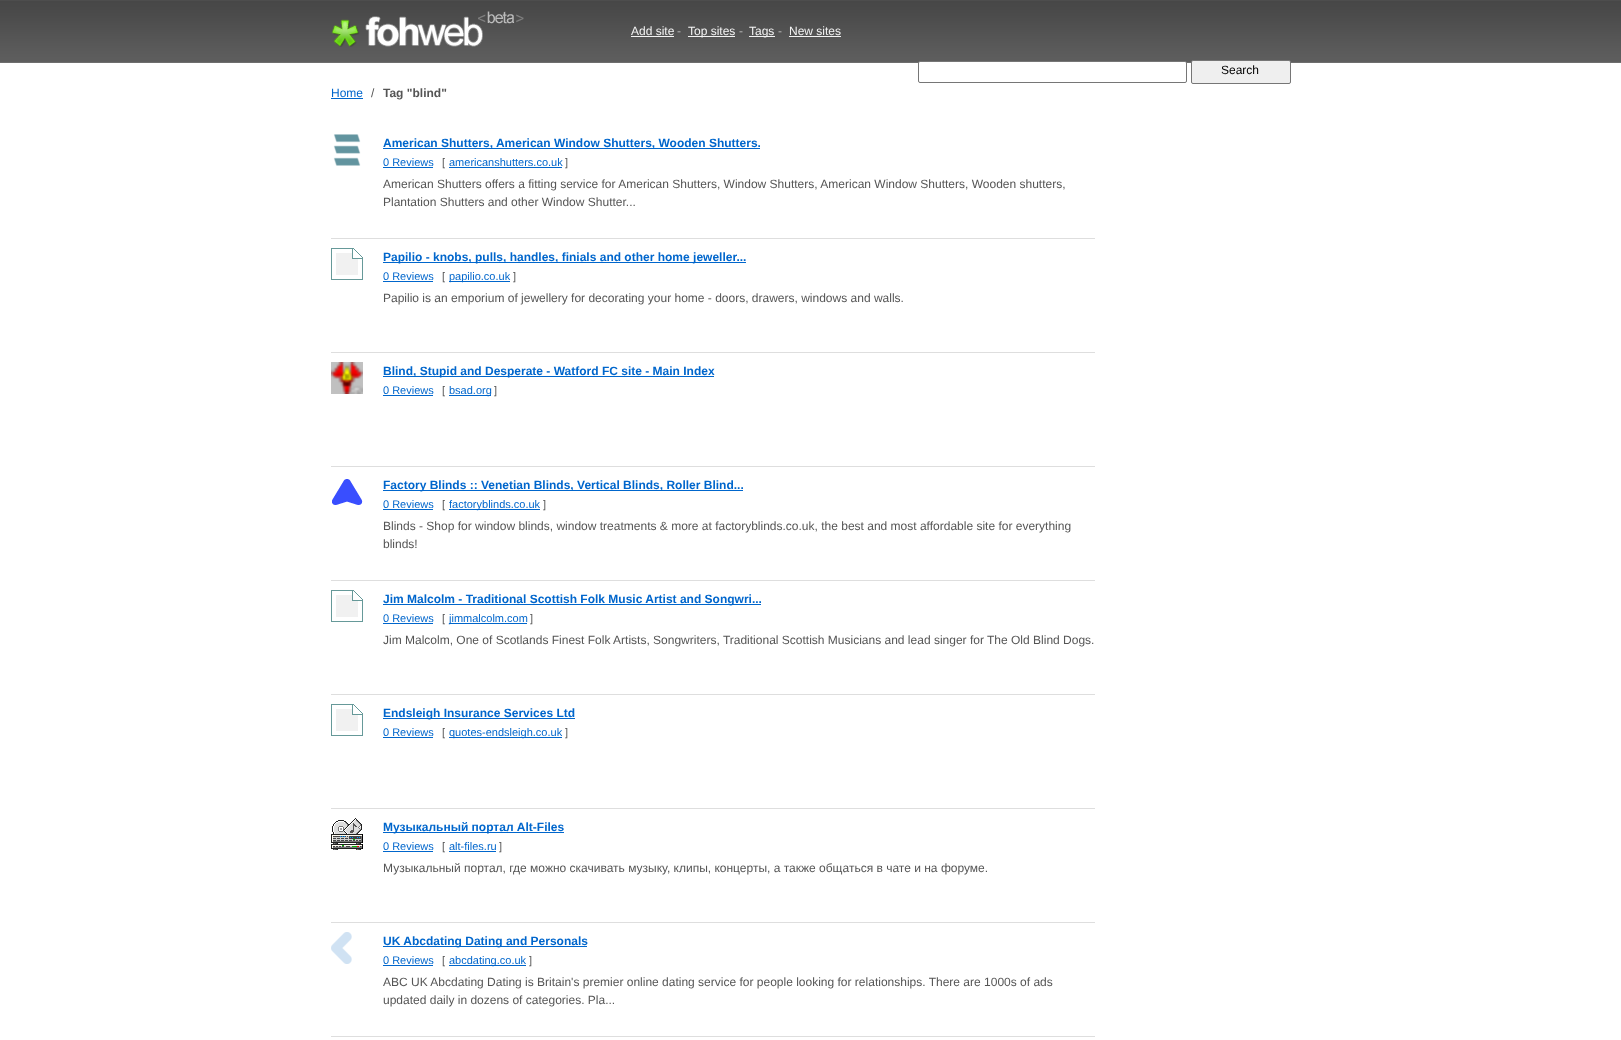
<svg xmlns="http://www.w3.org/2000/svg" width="1621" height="1040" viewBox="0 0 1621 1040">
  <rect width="100%" height="100%" fill="#ffffff"/>
  <image x="0" y="0" width="1621" height="63" href="img1.png"/>
  <image x="331" y="11" width="193" height="36" href="img2.png"/>
  <text x="631" y="35" font-family="Liberation Sans" font-size="12" fill="#f3f3f3">Add site</text>
  <rect x="631" y="36" width="43" height="1" fill="#f3f3f3"/>
  <text x="677" y="35" font-family="Liberation Sans" font-size="12" fill="#b6b6b6">-</text>
  <rect x="688" y="36" width="47" height="1" fill="#f3f3f3"/>
  <text x="688" y="35" font-family="Liberation Sans" font-size="12" fill="#f3f3f3">Top sites</text>
  <text x="739" y="35" font-family="Liberation Sans" font-size="12" fill="#b6b6b6">-</text>
  <rect x="749" y="36" width="26" height="1" fill="#f3f3f3"/>
  <text x="749" y="35" font-family="Liberation Sans" font-size="12" fill="#f3f3f3">Tags</text>
  <text x="778" y="35" font-family="Liberation Sans" font-size="12" fill="#b6b6b6">-</text>
  <text x="789" y="35" font-family="Liberation Sans" font-size="12" fill="#f3f3f3">New sites</text>
  <rect x="789" y="36" width="52" height="1" fill="#f3f3f3"/>
  <rect x="918.5" y="61.5" width="268" height="21" rx="1.5" fill="#ffffff" stroke="#767676"/>
  <rect x="1191.5" y="60.5" width="99" height="23" rx="1.5" fill="#efefef" stroke="#767676"/>
  <text x="1221" y="74" font-family="Liberation Sans" font-size="12" fill="#000000">Search</text>
  <text x="331" y="97" font-family="Liberation Sans" font-size="12" fill="#0066cc">Home</text>
  <rect x="331" y="98" width="32" height="1" fill="#0066cc"/>
  <text x="371" y="97" font-family="Liberation Sans" font-size="12" fill="#555555">/</text>
  <text x="383" y="97" font-family="Liberation Sans" font-size="12" font-weight="bold" fill="#555555">Tag "blind"</text>
  <rect x="331" y="238" width="764" height="1" fill="#dedede"/>
  <image x="333" y="134" width="28" height="32" href="img3.png"/>
  <rect x="383" y="148" width="377" height="1" fill="#0066cc"/>
  <text x="383" y="147" font-family="Liberation Sans" font-size="12" font-weight="bold" fill="#0066cc">American Shutters, American Window Shutters, Wooden Shutters.</text>
  <text x="383" y="166" font-family="Liberation Sans" font-size="11" fill="#0066cc">0 Reviews</text>
  <rect x="383" y="167" width="50" height="1" fill="#0066cc"/>
  <text x="442" y="166" font-family="Liberation Sans" font-size="11" fill="#555555">[</text>
  <text x="449" y="166" font-family="Liberation Sans" font-size="11" fill="#0066cc">americanshutters.co.uk</text>
  <rect x="449" y="167" width="113" height="1" fill="#0066cc"/>
  <text x="565" y="166" font-family="Liberation Sans" font-size="11" fill="#555555">]</text>
  <text x="383" y="188" font-family="Liberation Sans" font-size="12" fill="#555555">American Shutters offers a fitting service for American Shutters, Window Shutters, American Window Shutters, Wooden shutters,</text>
  <text x="383" y="206" font-family="Liberation Sans" font-size="12" fill="#555555">Plantation Shutters and other Window Shutter...</text>
  <rect x="331" y="352" width="764" height="1" fill="#dedede"/>
  <image x="331" y="248" width="32" height="32" href="img4.png"/>
  <rect x="383" y="262" width="363" height="1" fill="#0066cc"/>
  <text x="383" y="261" font-family="Liberation Sans" font-size="12" font-weight="bold" fill="#0066cc">Papilio - knobs, pulls, handles, finials and other home jeweller...</text>
  <text x="383" y="280" font-family="Liberation Sans" font-size="11" fill="#0066cc">0 Reviews</text>
  <rect x="383" y="281" width="50" height="1" fill="#0066cc"/>
  <text x="442" y="280" font-family="Liberation Sans" font-size="11" fill="#555555">[</text>
  <rect x="449" y="281" width="61" height="1" fill="#0066cc"/>
  <text x="449" y="280" font-family="Liberation Sans" font-size="11" fill="#0066cc">papilio.co.uk</text>
  <text x="513" y="280" font-family="Liberation Sans" font-size="11" fill="#555555">]</text>
  <text x="383" y="302" font-family="Liberation Sans" font-size="12" fill="#555555">Papilio is an emporium of jewellery for decorating your home - doors, drawers, windows and walls.</text>
  <rect x="331" y="466" width="764" height="1" fill="#dedede"/>
  <image x="331" y="362" width="32" height="32" href="img5.png"/>
  <rect x="383" y="376" width="331" height="1" fill="#0066cc"/>
  <text x="383" y="375" font-family="Liberation Sans" font-size="12" font-weight="bold" fill="#0066cc">Blind, Stupid and Desperate - Watford FC site - Main Index</text>
  <text x="383" y="394" font-family="Liberation Sans" font-size="11" fill="#0066cc">0 Reviews</text>
  <rect x="383" y="395" width="50" height="1" fill="#0066cc"/>
  <text x="442" y="394" font-family="Liberation Sans" font-size="11" fill="#555555">[</text>
  <rect x="449" y="395" width="42" height="1" fill="#0066cc"/>
  <text x="449" y="394" font-family="Liberation Sans" font-size="11" fill="#0066cc">bsad.org</text>
  <text x="494" y="394" font-family="Liberation Sans" font-size="11" fill="#555555">]</text>
  <rect x="331" y="580" width="764" height="1" fill="#dedede"/>
  <image x="332" y="479" width="31" height="26" href="img6.png"/>
  <rect x="383" y="490" width="360" height="1" fill="#0066cc"/>
  <text x="383" y="489" font-family="Liberation Sans" font-size="12" font-weight="bold" fill="#0066cc">Factory Blinds :: Venetian Blinds, Vertical Blinds, Roller Blind...</text>
  <text x="383" y="508" font-family="Liberation Sans" font-size="11" fill="#0066cc">0 Reviews</text>
  <rect x="383" y="509" width="50" height="1" fill="#0066cc"/>
  <text x="442" y="508" font-family="Liberation Sans" font-size="11" fill="#555555">[</text>
  <rect x="449" y="509" width="91" height="1" fill="#0066cc"/>
  <text x="449" y="508" font-family="Liberation Sans" font-size="11" fill="#0066cc">factoryblinds.co.uk</text>
  <text x="543" y="508" font-family="Liberation Sans" font-size="11" fill="#555555">]</text>
  <text x="383" y="530" font-family="Liberation Sans" font-size="12" fill="#555555">Blinds - Shop for window blinds, window treatments &amp; more at factoryblinds.co.uk, the best and most affordable site for everything</text>
  <text x="383" y="548" font-family="Liberation Sans" font-size="12" fill="#555555">blinds!</text>
  <rect x="331" y="694" width="764" height="1" fill="#dedede"/>
  <image x="331" y="590" width="32" height="32" href="img4.png"/>
  <rect x="383" y="604" width="378" height="1" fill="#0066cc"/>
  <text x="383" y="603" font-family="Liberation Sans" font-size="12" font-weight="bold" fill="#0066cc">Jim Malcolm - Traditional Scottish Folk Music Artist and Songwri...</text>
  <text x="383" y="622" font-family="Liberation Sans" font-size="11" fill="#0066cc">0 Reviews</text>
  <rect x="383" y="623" width="50" height="1" fill="#0066cc"/>
  <text x="442" y="622" font-family="Liberation Sans" font-size="11" fill="#555555">[</text>
  <rect x="449" y="623" width="78" height="1" fill="#0066cc"/>
  <text x="449" y="622" font-family="Liberation Sans" font-size="11" fill="#0066cc">jimmalcolm.com</text>
  <text x="530" y="622" font-family="Liberation Sans" font-size="11" fill="#555555">]</text>
  <text x="383" y="644" font-family="Liberation Sans" font-size="12" fill="#555555">Jim Malcolm, One of Scotlands Finest Folk Artists, Songwriters, Traditional Scottish Musicians and lead singer for The Old Blind Dogs.</text>
  <rect x="331" y="808" width="764" height="1" fill="#dedede"/>
  <image x="331" y="704" width="32" height="32" href="img4.png"/>
  <rect x="383" y="718" width="192" height="1" fill="#0066cc"/>
  <text x="383" y="717" font-family="Liberation Sans" font-size="12" font-weight="bold" fill="#0066cc">Endsleigh Insurance Services Ltd</text>
  <text x="383" y="736" font-family="Liberation Sans" font-size="11" fill="#0066cc">0 Reviews</text>
  <rect x="383" y="737" width="50" height="1" fill="#0066cc"/>
  <text x="442" y="736" font-family="Liberation Sans" font-size="11" fill="#555555">[</text>
  <rect x="449" y="737" width="113" height="1" fill="#0066cc"/>
  <text x="449" y="736" font-family="Liberation Sans" font-size="11" fill="#0066cc">quotes-endsleigh.co.uk</text>
  <text x="565" y="736" font-family="Liberation Sans" font-size="11" fill="#555555">]</text>
  <rect x="331" y="922" width="764" height="1" fill="#dedede"/>
  <image x="331" y="818" width="32" height="32" href="img7.png"/>
  <rect x="383" y="832" width="181" height="1" fill="#0066cc"/>
  <text x="383" y="831" font-family="Liberation Sans" font-size="12" font-weight="bold" fill="#0066cc">Музыкальный портал Alt-Files</text>
  <text x="383" y="850" font-family="Liberation Sans" font-size="11" fill="#0066cc">0 Reviews</text>
  <rect x="383" y="851" width="50" height="1" fill="#0066cc"/>
  <text x="442" y="850" font-family="Liberation Sans" font-size="11" fill="#555555">[</text>
  <text x="449" y="850" font-family="Liberation Sans" font-size="11" fill="#0066cc">alt-files.ru</text>
  <rect x="449" y="851" width="47" height="1" fill="#0066cc"/>
  <text x="499" y="850" font-family="Liberation Sans" font-size="11" fill="#555555">]</text>
  <text x="383" y="872" font-family="Liberation Sans" font-size="12" fill="#555555">Музыкальный портал, где можно скачивать музыку, клипы, концерты, а также общаться в чате и на форуме.</text>
  <rect x="331" y="1036" width="764" height="1" fill="#dedede"/>
  <image x="331" y="932" width="21" height="32" href="img8.png"/>
  <rect x="383" y="946" width="204" height="1" fill="#0066cc"/>
  <text x="383" y="945" font-family="Liberation Sans" font-size="12" font-weight="bold" fill="#0066cc">UK Abcdating Dating and Personals</text>
  <text x="383" y="964" font-family="Liberation Sans" font-size="11" fill="#0066cc">0 Reviews</text>
  <rect x="383" y="965" width="50" height="1" fill="#0066cc"/>
  <text x="442" y="964" font-family="Liberation Sans" font-size="11" fill="#555555">[</text>
  <rect x="449" y="965" width="77" height="1" fill="#0066cc"/>
  <text x="449" y="964" font-family="Liberation Sans" font-size="11" fill="#0066cc">abcdating.co.uk</text>
  <text x="529" y="964" font-family="Liberation Sans" font-size="11" fill="#555555">]</text>
  <text x="383" y="986" font-family="Liberation Sans" font-size="12" fill="#555555">ABC UK Abcdating Dating is Britain's premier online dating service for people looking for relationships. There are 1000s of ads</text>
  <text x="383" y="1004" font-family="Liberation Sans" font-size="12" fill="#555555">updated daily in dozens of categories. Pla...</text>
</svg>
